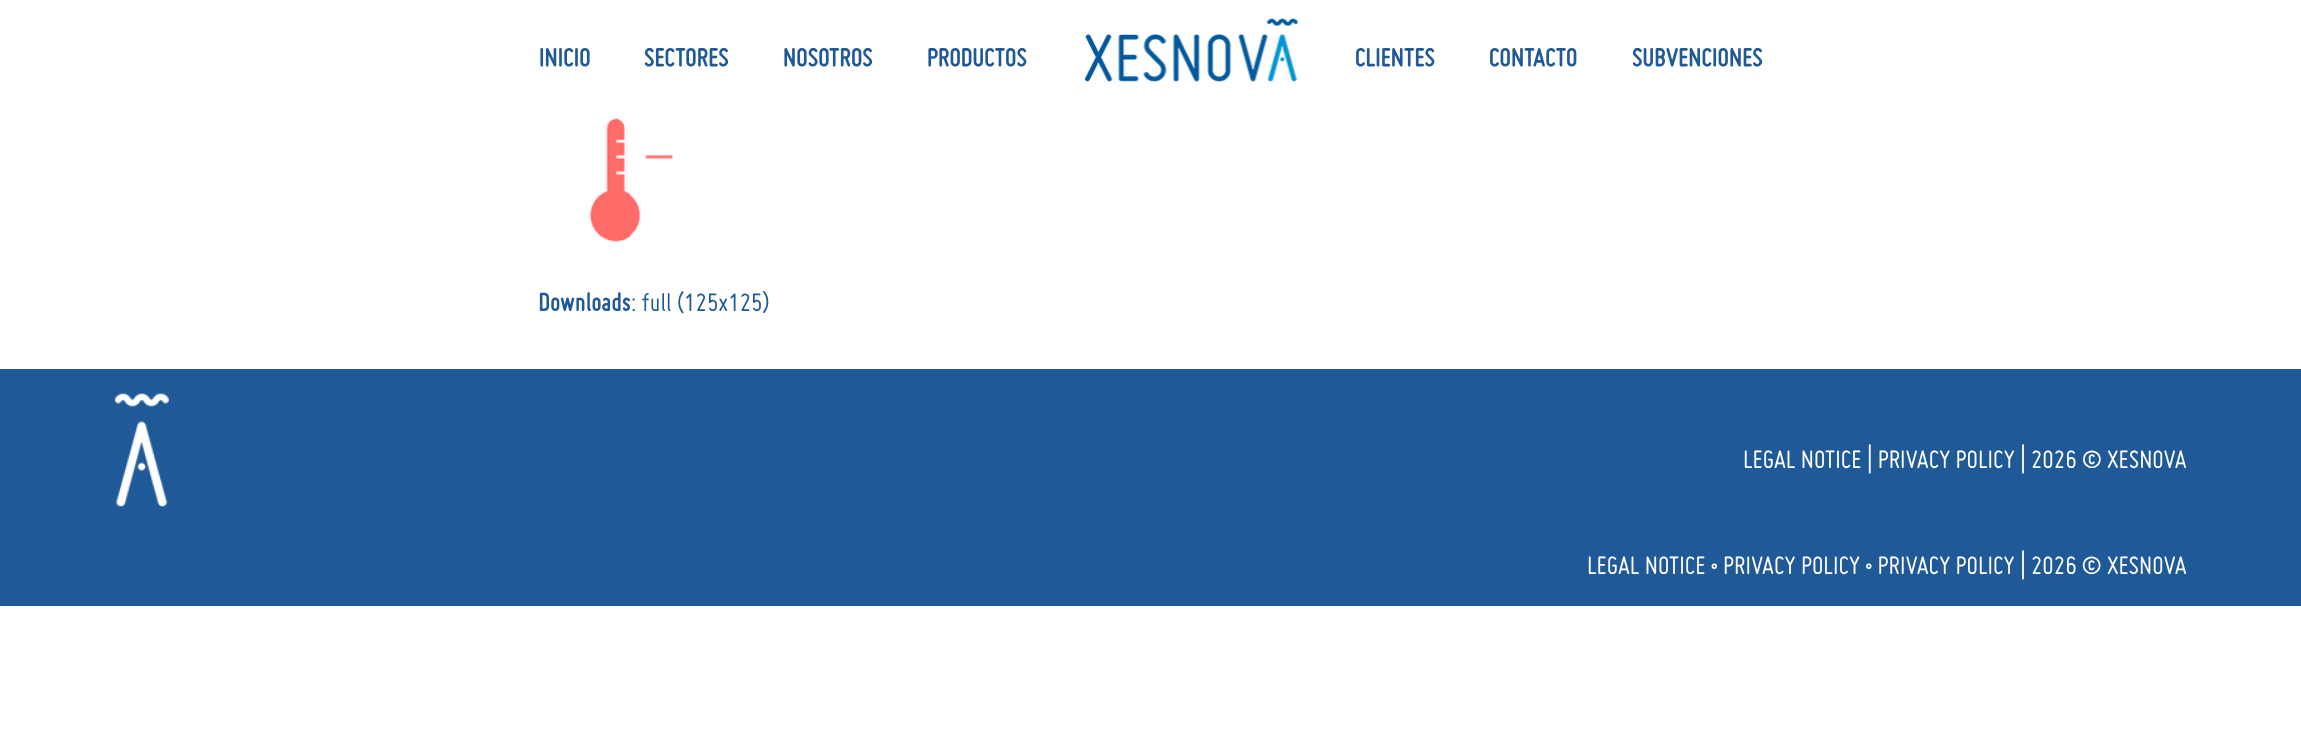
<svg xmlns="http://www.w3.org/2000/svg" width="2301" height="734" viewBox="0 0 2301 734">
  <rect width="100%" height="100%" fill="#ffffff"/>
  <text x="539" y="66" font-family="'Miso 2'" font-size="27.5" font-weight="bold" fill="#1f5997">INICIO</text>
  <text x="644" y="66" font-family="'Miso 2'" font-size="27.5" font-weight="bold" fill="#1f5997">SECTORES</text>
  <text x="783" y="66" font-family="'Miso 2'" font-size="27.5" font-weight="bold" fill="#1f5997">NOSOTROS</text>
  <text x="927" y="66" font-family="'Miso 2'" font-size="27.5" font-weight="bold" fill="#1f5997">PRODUCTOS</text>
  <image x="1085" y="18" width="213" height="64" href="img1.png"/>
  <text x="1355" y="66" font-family="'Miso 2'" font-size="27.5" font-weight="bold" fill="#1f5997">CLIENTES</text>
  <text x="1489" y="66" font-family="'Miso 2'" font-size="27.5" font-weight="bold" fill="#1f5997">CONTACTO</text>
  <text x="1632" y="66" font-family="'Miso 2'" font-size="27.5" font-weight="bold" fill="#1f5997">SUBVENCIONES</text>
  <image x="589" y="118" width="84" height="124" href="img2.png"/>
  <text x="538" y="311" font-family="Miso" font-size="27.5" font-weight="bold" fill="#1f5997">Downloads</text>
  <text x="631" y="311" font-family="Miso" font-size="27.5" fill="#1f5997">: full (125x125)</text>
  <rect x="0" y="369" width="2301" height="237" fill="#1f5997"/>
  <image x="115" y="393" width="54" height="114" href="img3.png"/>
  <text x="1743" y="468" font-family="Miso" font-size="27.5" fill="#ffffff">LEGAL NOTICE | PRIVACY POLICY | 2026 © XESNOVA</text>
  <text x="1587" y="574" font-family="Miso" font-size="27.5" fill="#ffffff">LEGAL NOTICE • PRIVACY POLICY • PRIVACY POLICY | 2026 © XESNOVA</text>
</svg>
